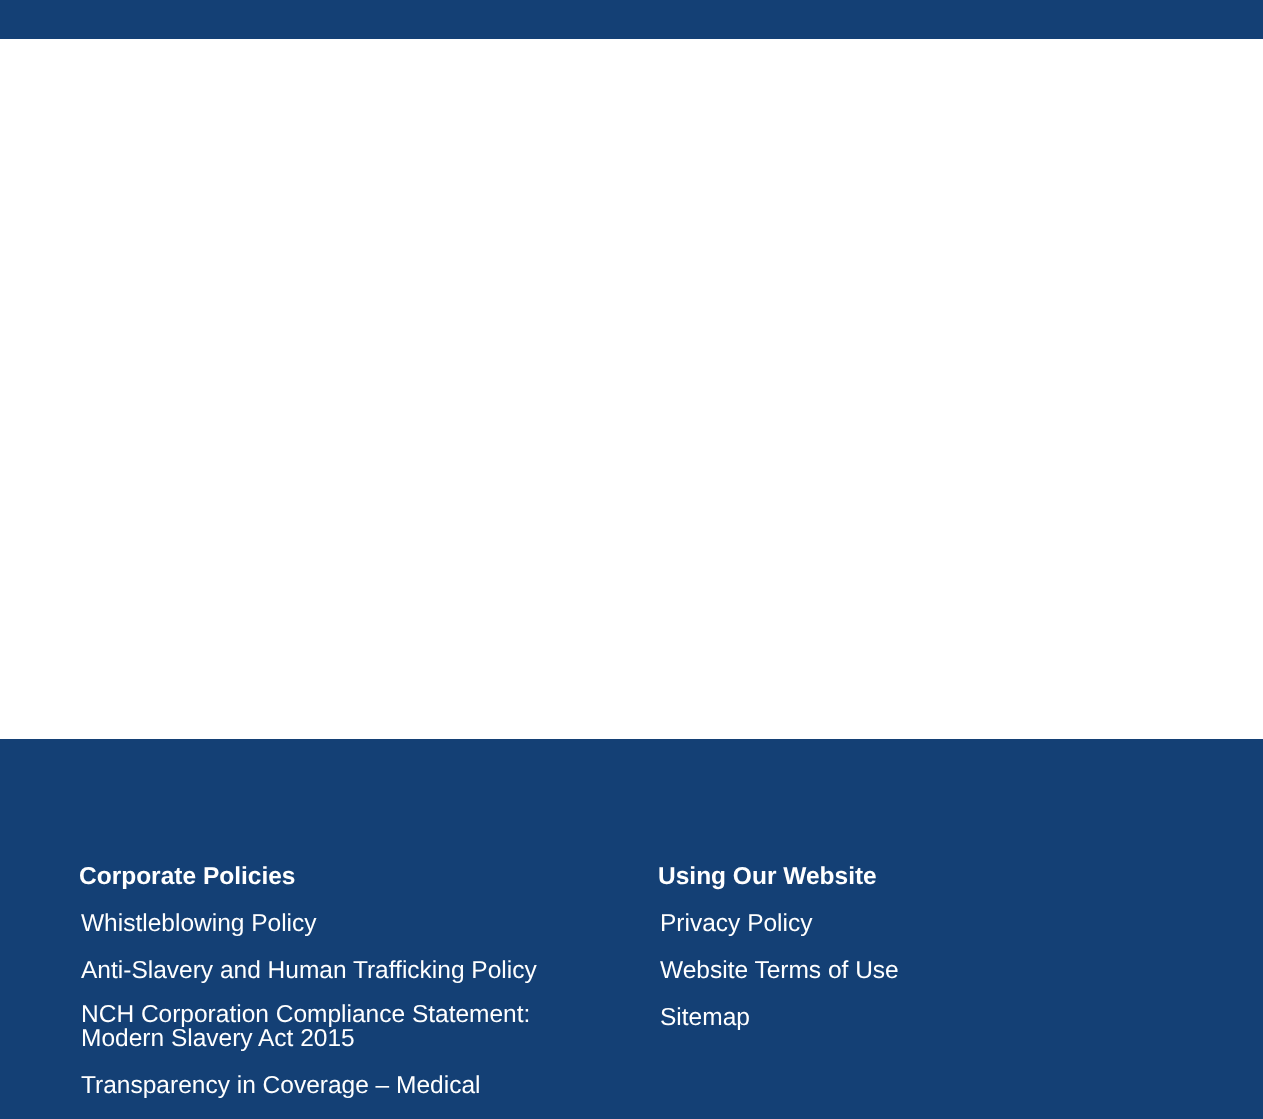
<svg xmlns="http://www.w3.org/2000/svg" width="1263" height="1119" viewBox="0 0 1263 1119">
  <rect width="100%" height="100%" fill="#ffffff"/>
  <rect x="0" y="0" width="1263" height="39" fill="#144075"/>
  <rect x="0" y="739" width="1263" height="380" fill="#144075"/>
  <text x="79" y="884" font-family="Liberation Sans" font-size="24.5" font-weight="bold" fill="#ffffff">Corporate Policies</text>
  <text x="81" y="931" font-family="Liberation Sans" font-size="24.5" fill="#ffffff">Whistleblowing Policy</text>
  <text x="81" y="978" font-family="Liberation Sans" font-size="24.5" fill="#ffffff">Anti-Slavery and Human Trafficking Policy</text>
  <text x="81" y="1022" font-family="Liberation Sans" font-size="24.5" fill="#ffffff">NCH Corporation Compliance Statement:</text>
  <text x="81" y="1046" font-family="Liberation Sans" font-size="24.5" fill="#ffffff">Modern Slavery Act 2015</text>
  <text x="81" y="1093" font-family="Liberation Sans" font-size="24.5" fill="#ffffff">Transparency in Coverage – Medical</text>
  <text x="658" y="884" font-family="Liberation Sans" font-size="24.5" font-weight="bold" fill="#ffffff">Using Our Website</text>
  <text x="660" y="931" font-family="Liberation Sans" font-size="24.5" fill="#ffffff">Privacy Policy</text>
  <text x="660" y="978" font-family="Liberation Sans" font-size="24.5" fill="#ffffff">Website Terms of Use</text>
  <text x="660" y="1025" font-family="Liberation Sans" font-size="24.5" fill="#ffffff">Sitemap</text>
</svg>
